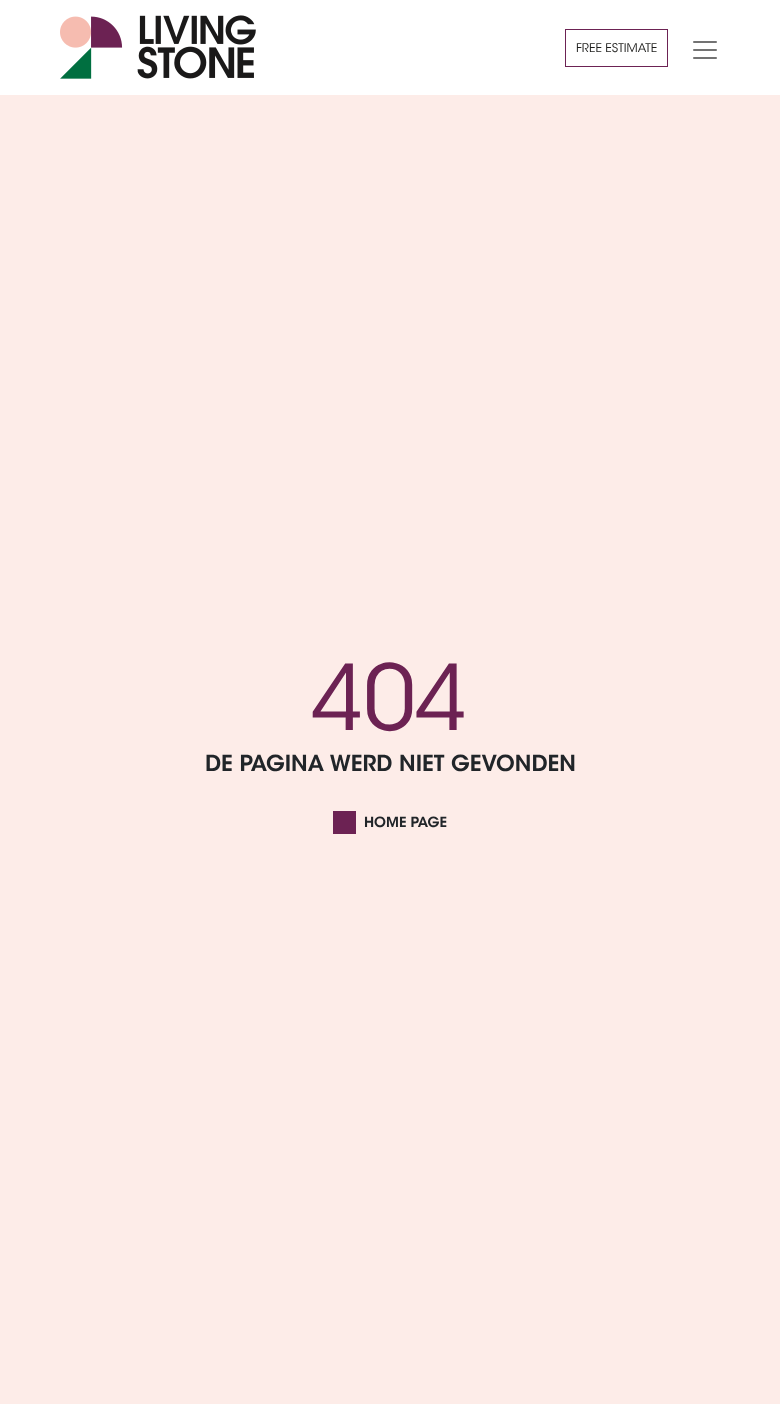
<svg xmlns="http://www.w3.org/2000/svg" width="780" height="1408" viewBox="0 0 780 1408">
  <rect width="100%" height="100%" fill="#ffffff"/>
  <image x="60" y="15" width="196" height="64" href="img1.png"/>
  <rect x="565.5" y="29.5" width="102" height="37" fill="none" stroke="#6c2253"/>
  <text x="576" y="52" font-family="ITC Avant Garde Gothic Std" font-size="12" font-weight="300" fill="#1d1d1b">FREE ESTIMATE</text>
  <image x="693" y="41" width="24" height="18" href="img2.png"/>
  <rect x="0" y="95" width="780" height="1309" fill="#fdece8"/>
  <text x="312" y="730" font-family="ITC Avant Garde Gothic Std" font-size="90" font-weight="300" fill="#6c2253">404</text>
  <text x="205" y="771" font-family="ITC Avant Garde Gothic Std" font-size="22" font-weight="600" fill="#212529">DE PAGINA WERD NIET GEVONDEN</text>
  <rect x="333" y="811" width="23" height="23" fill="#6c2253"/>
  <text x="364" y="827" font-family="ITC Avant Garde Gothic Std" font-size="14" font-weight="600" fill="#212529">HOME PAGE</text>
</svg>
